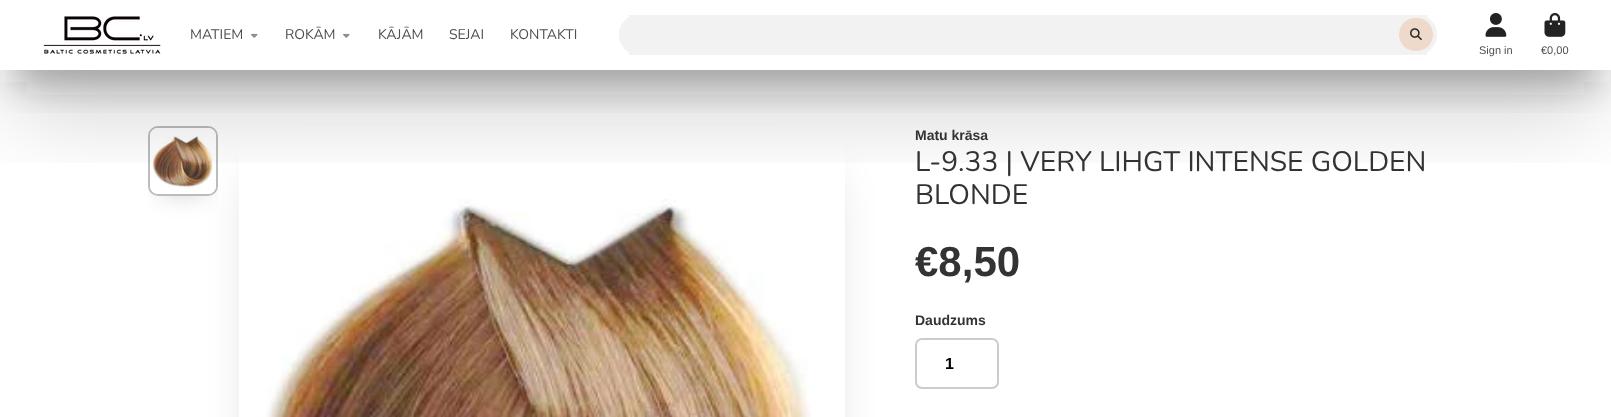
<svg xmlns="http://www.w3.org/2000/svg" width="1611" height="417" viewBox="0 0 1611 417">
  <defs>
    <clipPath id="clip1"><rect x="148" y="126" width="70" height="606"/></clipPath>
    <filter id="blur1" x="-50%" y="-200%" width="200%" height="500%"><feGaussianBlur stdDeviation="14"/></filter>
    <clipPath id="clip2"><rect x="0" y="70" width="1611" height="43"/></clipPath>
    <filter id="blur2" x="-50%" y="-200%" width="200%" height="500%"><feGaussianBlur stdDeviation="19"/></filter>
    <clipPath id="clip3"><path d="M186 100H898V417H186ZM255 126H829C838 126 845 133 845 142V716C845 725 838 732 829 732H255C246 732 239 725 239 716V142C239 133 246 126 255 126Z" clip-rule="evenodd"/></clipPath>
    <filter id="blur3" x="-50%" y="-200%" width="200%" height="500%"><feGaussianBlur stdDeviation="26"/></filter>
    <clipPath id="clip4"><rect x="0" y="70" width="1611" height="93"/></clipPath>
    <filter id="blur4" x="-50%" y="-200%" width="200%" height="500%"><feGaussianBlur stdDeviation="44"/></filter>
  </defs>
  <rect width="100%" height="100%" fill="#ffffff"/>
  <g clip-path="url(#clip1)">
    <rect x="162" y="147" width="42" height="42" fill="#262626" fill-opacity="0.3" filter="url(#blur1)"/>
  </g>
  <rect x="149" y="127" width="68" height="68" rx="9" fill="none" stroke="#bcbcbc" stroke-width="2"/>
  <image x="150" y="128" width="66" height="66" href="img6.png"/>
  <g clip-path="url(#clip2)">
    <rect x="14" y="40" width="1583" height="42" fill="#262626" fill-opacity="0.4" filter="url(#blur2)"/>
  </g>
  <g clip-path="url(#clip3)">
    <rect x="265" y="179" width="554" height="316" fill="#262626" fill-opacity="0.3" filter="url(#blur3)"/>
  </g>
  <image x="266" y="199" width="545" height="218" href="img7.png"/>
  <g clip-path="url(#clip4)">
    <rect x="14" y="58" width="1583" height="42" fill="#262626" fill-opacity="0.3" filter="url(#blur4)"/>
  </g>
  <image x="43" y="16" width="118" height="38" href="img1.png"/>
  <text x="190" y="39" font-family="Nunito" font-size="14" fill="#4f4f4f">MATIEM</text>
  <image x="251" y="33" width="7" height="5" href="img2.png"/>
  <text x="285" y="39" font-family="Nunito" font-size="14" fill="#4f4f4f">ROKĀM</text>
  <image x="343" y="33" width="7" height="5" href="img2.png"/>
  <text x="378" y="39" font-family="Nunito" font-size="14" fill="#4f4f4f">KĀJĀM</text>
  <text x="449" y="39" font-family="Nunito" font-size="14" fill="#4f4f4f">SEJAI</text>
  <text x="510" y="39" font-family="Nunito" font-size="14" fill="#4f4f4f">KONTAKTI</text>
  <rect x="619" y="15" width="818" height="40" rx="20" fill="#f2f2f2"/>
  <rect x="629" y="15" width="798" height="40" fill="#f2f2f2"/>
  <rect x="619" y="15" width="818" height="39" rx="19.5" fill="#f2f2f2"/>
  <rect x="1399" y="18" width="34" height="33" rx="16.5" fill="#eed9cb"/>
  <image x="1410" y="28" width="12" height="12" href="img3.png"/>
  <image x="1485" y="13" width="22" height="24" href="img4.png"/>
  <text x="1479" y="54" font-family="Liberation Sans" font-size="11" fill="#4f4f4f">Sign in</text>
  <image x="1544" y="13" width="22" height="24" href="img5.png"/>
  <text x="1541" y="54" font-family="Liberation Sans" font-size="11" fill="#4f4f4f">€0,00</text>
  <text x="915" y="140" font-family="Liberation Sans" font-size="14" font-weight="bold" fill="#333333">Matu krāsa</text>
  <text x="915" y="171" font-family="Nunito" font-size="28.2" fill="#333333">L-9.33 | VERY LIHGT INTENSE GOLDEN</text>
  <text x="915" y="204" font-family="Nunito" font-size="28.2" fill="#333333">BLONDE</text>
  <text x="915" y="276" font-family="Liberation Sans" font-size="42" font-weight="bold" fill="#333333">€8,50</text>
  <text x="915" y="325" font-family="Liberation Sans" font-size="14" font-weight="bold" fill="#333333">Daudzums</text>
  <rect x="916" y="339" width="82" height="49" rx="6" fill="none" stroke="#cccccc" stroke-width="2"/>
  <text x="945" y="369" font-family="Liberation Sans" font-size="16" font-weight="bold" fill="#000000">1</text>
</svg>
